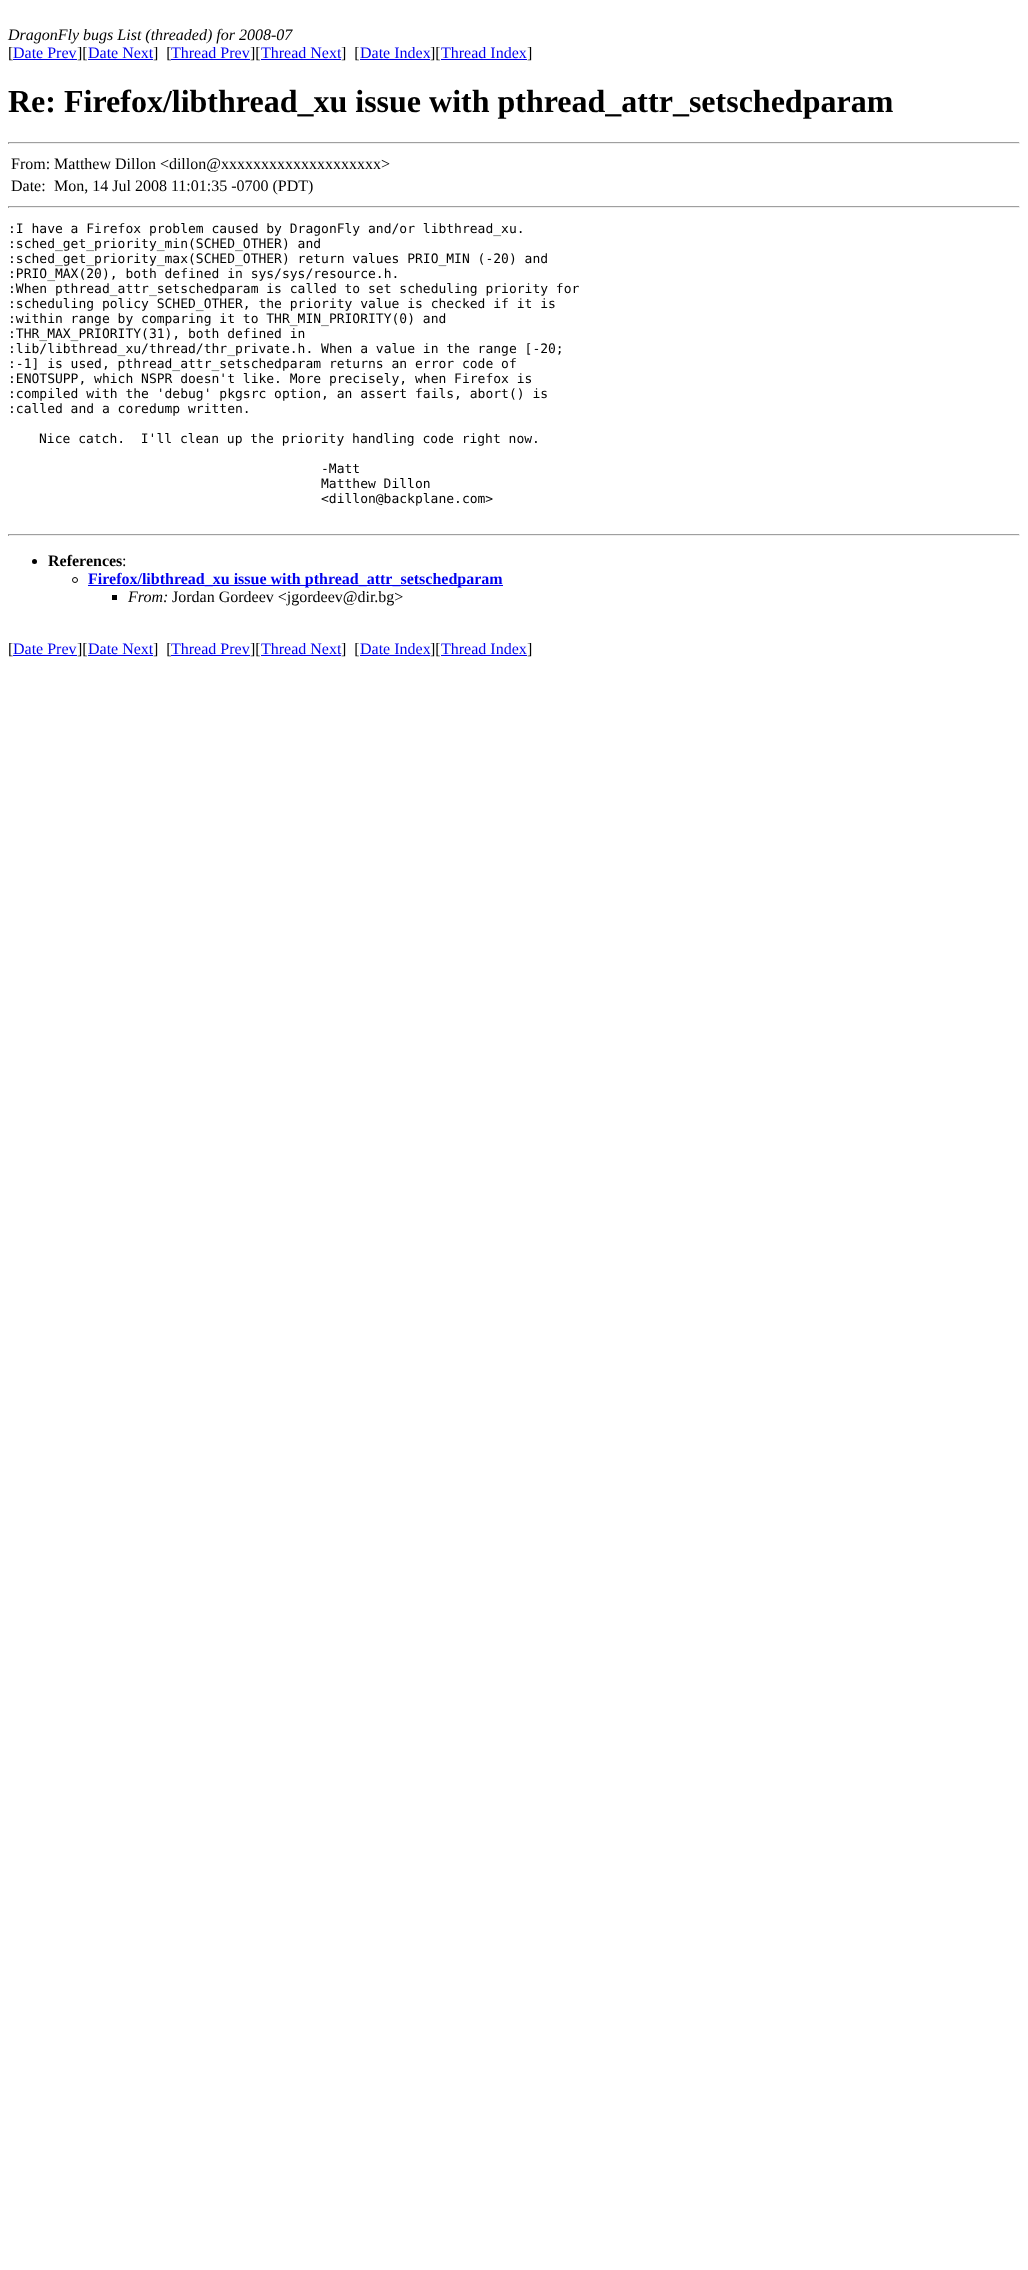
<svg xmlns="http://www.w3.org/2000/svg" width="1028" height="2270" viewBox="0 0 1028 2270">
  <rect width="100%" height="100%" fill="#ffffff"/>
  <text x="8" y="40" font-family="Liberation Serif" font-size="16" font-style="italic" fill="#000000">DragonFly bugs List (threaded) for 2008-07</text>
  <text x="8" y="58" font-family="Liberation Serif" font-size="16" fill="#000000">[</text>
  <text x="13" y="58" font-family="Liberation Serif" font-size="16" fill="#0000ee">Date Prev</text>
  <rect x="13" y="59" width="64" height="1" fill="#0000ee"/>
  <text x="77" y="58" font-family="Liberation Serif" font-size="16" fill="#000000">][</text>
  <text x="88" y="58" font-family="Liberation Serif" font-size="16" fill="#0000ee">Date Next</text>
  <rect x="88" y="59" width="65" height="1" fill="#0000ee"/>
  <text x="153" y="58" font-family="Liberation Serif" font-size="16" fill="#000000" xml:space="preserve">]  [</text>
  <text x="171" y="58" font-family="Liberation Serif" font-size="16" fill="#0000ee">Thread Prev</text>
  <rect x="171" y="59" width="79" height="1" fill="#0000ee"/>
  <text x="250" y="58" font-family="Liberation Serif" font-size="16" fill="#000000">][</text>
  <text x="261" y="58" font-family="Liberation Serif" font-size="16" fill="#0000ee">Thread Next</text>
  <rect x="261" y="59" width="80" height="1" fill="#0000ee"/>
  <text x="341" y="58" font-family="Liberation Serif" font-size="16" fill="#000000" xml:space="preserve">]  [</text>
  <text x="360" y="58" font-family="Liberation Serif" font-size="16" fill="#0000ee">Date Index</text>
  <rect x="360" y="59" width="70" height="1" fill="#0000ee"/>
  <text x="430" y="58" font-family="Liberation Serif" font-size="16" fill="#000000">][</text>
  <text x="441" y="58" font-family="Liberation Serif" font-size="16" fill="#0000ee">Thread Index</text>
  <rect x="441" y="59" width="86" height="1" fill="#0000ee"/>
  <text x="527" y="58" font-family="Liberation Serif" font-size="16" fill="#000000">]</text>
  <text x="8" y="112" font-family="Liberation Serif" font-size="32" font-weight="bold" fill="#000000">Re: Firefox/libthread_xu issue with pthread_attr_setschedparam</text>
  <rect x="8" y="142" width="1012" height="1" fill="#9f9f9f"/>
  <rect x="1019" y="142" width="1" height="2" fill="#eeeeee"/>
  <rect x="8" y="143" width="1012" height="1" fill="#eeeeee"/>
  <rect x="8" y="142" width="1" height="2" fill="#9f9f9f"/>
  <text x="11" y="169" font-family="Liberation Serif" font-size="16" fill="#000000">From: Matthew Dillon &lt;dillon@xxxxxxxxxxxxxxxxxxxx&gt;</text>
  <text x="11" y="191" font-family="Liberation Serif" font-size="16" fill="#000000">Date:</text>
  <text x="54" y="191" font-family="Liberation Serif" font-size="16" fill="#000000">Mon, 14 Jul 2008 11:01:35 -0700 (PDT)</text>
  <rect x="8" y="206" width="1012" height="1" fill="#9f9f9f"/>
  <rect x="1019" y="206" width="1" height="2" fill="#eeeeee"/>
  <rect x="8" y="207" width="1012" height="1" fill="#eeeeee"/>
  <rect x="8" y="206" width="1" height="2" fill="#9f9f9f"/>
  <text x="8" y="233" font-family="DejaVu Sans Mono" font-size="13" fill="#000000">:I have a Firefox problem caused by DragonFly and/or libthread_xu.</text>
  <text x="8" y="248" font-family="DejaVu Sans Mono" font-size="13" fill="#000000">:sched_get_priority_min(SCHED_OTHER) and</text>
  <text x="8" y="263" font-family="DejaVu Sans Mono" font-size="13" fill="#000000">:sched_get_priority_max(SCHED_OTHER) return values PRIO_MIN (-20) and</text>
  <text x="8" y="278" font-family="DejaVu Sans Mono" font-size="13" fill="#000000">:PRIO_MAX(20), both defined in sys/sys/resource.h.</text>
  <text x="8" y="293" font-family="DejaVu Sans Mono" font-size="13" fill="#000000">:When pthread_attr_setschedparam is called to set scheduling priority for</text>
  <text x="8" y="308" font-family="DejaVu Sans Mono" font-size="13" fill="#000000">:scheduling policy SCHED_OTHER, the priority value is checked if it is</text>
  <text x="8" y="323" font-family="DejaVu Sans Mono" font-size="13" fill="#000000">:within range by comparing it to THR_MIN_PRIORITY(0) and</text>
  <text x="8" y="338" font-family="DejaVu Sans Mono" font-size="13" fill="#000000">:THR_MAX_PRIORITY(31), both defined in</text>
  <text x="8" y="353" font-family="DejaVu Sans Mono" font-size="13" fill="#000000">:lib/libthread_xu/thread/thr_private.h. When a value in the range [-20;</text>
  <text x="8" y="368" font-family="DejaVu Sans Mono" font-size="13" fill="#000000">:-1] is used, pthread_attr_setschedparam returns an error code of</text>
  <text x="8" y="383" font-family="DejaVu Sans Mono" font-size="13" fill="#000000">:ENOTSUPP, which NSPR doesn't like. More precisely, when Firefox is</text>
  <text x="8" y="398" font-family="DejaVu Sans Mono" font-size="13" fill="#000000">:compiled with the 'debug' pkgsrc option, an assert fails, abort() is</text>
  <text x="8" y="413" font-family="DejaVu Sans Mono" font-size="13" fill="#000000">:called and a coredump written.</text>
  <text x="39" y="443" font-family="DejaVu Sans Mono" font-size="13" fill="#000000" xml:space="preserve">Nice catch.  I'll clean up the priority handling code right now.</text>
  <text x="321" y="473" font-family="DejaVu Sans Mono" font-size="13" fill="#000000">-Matt</text>
  <text x="321" y="488" font-family="DejaVu Sans Mono" font-size="13" fill="#000000">Matthew Dillon</text>
  <text x="321" y="503" font-family="DejaVu Sans Mono" font-size="13" fill="#000000">&lt;dillon@backplane.com&gt;</text>
  <rect x="8" y="534" width="1012" height="1" fill="#9f9f9f"/>
  <rect x="1019" y="534" width="1" height="2" fill="#eeeeee"/>
  <rect x="8" y="535" width="1012" height="1" fill="#eeeeee"/>
  <rect x="8" y="534" width="1" height="2" fill="#9f9f9f"/>
  <circle cx="34.5" cy="561.5" r="2.5" fill="#000000"/>
  <text x="48" y="566" font-family="Liberation Serif" font-size="16" font-weight="bold" fill="#000000">References</text>
  <text x="122" y="566" font-family="Liberation Serif" font-size="16" fill="#000000">:</text>
  <circle cx="75" cy="580" r="2.5" fill="none" stroke="#000000"/>
  <rect x="88" y="585" width="415" height="1" fill="#0000ee"/>
  <text x="88" y="584" font-family="Liberation Serif" font-size="16" font-weight="bold" fill="#0000ee">Firefox/libthread_xu issue with pthread_attr_setschedparam</text>
  <rect x="112" y="595" width="5" height="5" fill="#000000"/>
  <text x="128" y="602" font-family="Liberation Serif" font-size="16" font-style="italic" fill="#000000">From:</text>
  <text x="172" y="602" font-family="Liberation Serif" font-size="16" fill="#000000">Jordan Gordeev &lt;jgordeev@dir.bg&gt;</text>
  <text x="8" y="654" font-family="Liberation Serif" font-size="16" fill="#000000">[</text>
  <text x="13" y="654" font-family="Liberation Serif" font-size="16" fill="#0000ee">Date Prev</text>
  <rect x="13" y="655" width="64" height="1" fill="#0000ee"/>
  <text x="77" y="654" font-family="Liberation Serif" font-size="16" fill="#000000">][</text>
  <text x="88" y="654" font-family="Liberation Serif" font-size="16" fill="#0000ee">Date Next</text>
  <rect x="88" y="655" width="65" height="1" fill="#0000ee"/>
  <text x="153" y="654" font-family="Liberation Serif" font-size="16" fill="#000000" xml:space="preserve">]  [</text>
  <text x="171" y="654" font-family="Liberation Serif" font-size="16" fill="#0000ee">Thread Prev</text>
  <rect x="171" y="655" width="79" height="1" fill="#0000ee"/>
  <text x="250" y="654" font-family="Liberation Serif" font-size="16" fill="#000000">][</text>
  <text x="261" y="654" font-family="Liberation Serif" font-size="16" fill="#0000ee">Thread Next</text>
  <rect x="261" y="655" width="80" height="1" fill="#0000ee"/>
  <text x="341" y="654" font-family="Liberation Serif" font-size="16" fill="#000000" xml:space="preserve">]  [</text>
  <text x="360" y="654" font-family="Liberation Serif" font-size="16" fill="#0000ee">Date Index</text>
  <rect x="360" y="655" width="70" height="1" fill="#0000ee"/>
  <text x="430" y="654" font-family="Liberation Serif" font-size="16" fill="#000000">][</text>
  <text x="441" y="654" font-family="Liberation Serif" font-size="16" fill="#0000ee">Thread Index</text>
  <rect x="441" y="655" width="86" height="1" fill="#0000ee"/>
  <text x="527" y="654" font-family="Liberation Serif" font-size="16" fill="#000000">]</text>
</svg>
